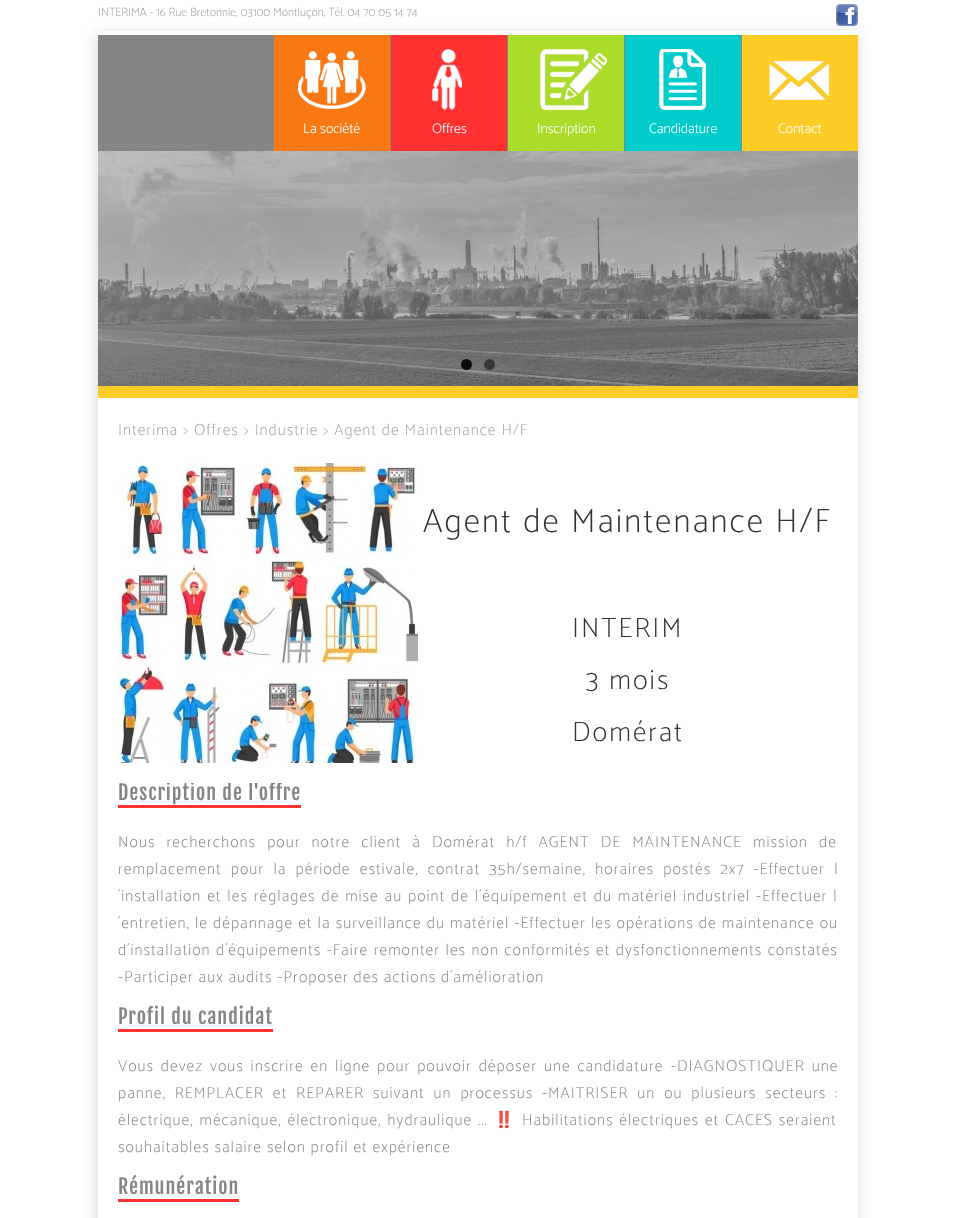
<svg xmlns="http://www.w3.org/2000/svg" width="956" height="1218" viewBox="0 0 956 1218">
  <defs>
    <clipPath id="clip1"><path d="M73 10H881V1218H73ZM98 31H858V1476H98Z" clip-rule="evenodd"/></clipPath>
    <filter id="blur1" x="-50%" y="-200%" width="200%" height="500%"><feGaussianBlur stdDeviation="7.5"/></filter>
    <clipPath id="clip2"><rect x="118" y="783" width="720" height="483"/></clipPath>
  </defs>
  <rect width="100%" height="100%" fill="#ffffff"/>
  <g clip-path="url(#clip1)">
    <rect x="97" y="34" width="760" height="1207" fill="#d5d5d5" filter="url(#blur1)"/>
  </g>
  <text x="98" y="16" font-family="Catamaran" font-size="12" font-weight="100" fill="#999999">INTERIMA - 16 Rue Bretonnie, 03100 Montluçon, Tél. 04 70 05 14 74</text>
  <image x="836" y="4" width="22" height="22" href="img1.png"/>
  <rect x="98" y="35" width="644" height="116" fill="#858585"/>
  <rect x="274" y="35" width="116" height="116" fill="#f87813"/>
  <image x="298" y="51" width="68" height="58" href="img2.png"/>
  <text x="303" y="133" font-family="Catamaran" font-size="14" font-weight="300" fill="#ffffff">La société</text>
  <rect x="391" y="35" width="116" height="116" fill="#ff3231"/>
  <image x="432" y="49" width="30" height="61" href="img3.png"/>
  <text x="432" y="133" font-family="Catamaran" font-size="14" font-weight="300" fill="#ffffff">Offres</text>
  <rect x="508" y="35" width="116" height="116" fill="#abdc2a"/>
  <image x="540" y="49" width="67" height="61" href="img4.png"/>
  <text x="537" y="133" font-family="Catamaran" font-size="14" font-weight="300" fill="#ffffff">Inscription</text>
  <rect x="625" y="35" width="116" height="116" fill="#00cccc"/>
  <image x="659" y="49" width="47" height="61" href="img5.png"/>
  <text x="649" y="133" font-family="Catamaran" font-size="14" font-weight="300" fill="#ffffff">Candidature</text>
  <rect x="742" y="35" width="116" height="116" fill="#fecc27"/>
  <image x="769" y="61" width="60" height="39" href="img6.png"/>
  <text x="778" y="133" font-family="Catamaran" font-size="14" font-weight="300" fill="#ffffff">Contact</text>
  <rect x="98" y="151" width="760" height="235" fill="#858585"/>
  <rect x="98" y="386" width="760" height="12" fill="#fecc27"/>
  <image x="98" y="151" width="760" height="235" href="img7.png"/>
  <circle cx="466.5" cy="364.5" r="5.5" fill="#000000" fill-opacity="0.9"/>
  <circle cx="489.5" cy="364.5" r="5.5" fill="#000000" fill-opacity="0.5"/>
  <text x="118" y="435" font-family="Catamaran" font-size="16" font-weight="100" letter-spacing="1" fill="#a2a2a2">Interima &gt; Offres &gt; Industrie &gt; Agent de Maintenance H/F</text>
  <image x="118" y="463" width="300" height="300" href="img8.png"/>
  <text x="423" y="532" font-family="Catamaran" font-size="34" font-weight="100" letter-spacing="2" fill="#333333">Agent de Maintenance H/F</text>
  <text x="572" y="637" font-family="Catamaran" font-size="28" font-weight="100" letter-spacing="2" fill="#333333">INTERIM</text>
  <text x="586" y="689" font-family="Catamaran" font-size="28" font-weight="100" letter-spacing="2" fill="#333333">3 mois</text>
  <text x="572" y="741" font-family="Catamaran" font-size="28" font-weight="100" letter-spacing="2" fill="#333333">Domérat</text>
  <g clip-path="url(#clip2)">
    <text x="118" y="800" font-family="Fjalla One" font-size="20" letter-spacing="1" fill="#858585">Description de l'offre</text>
  </g>
  <rect x="118" y="805" width="183" height="3" fill="#ff3231"/>
  <text x="118" y="847" word-spacing="6.25" font-family="Catamaran" font-size="16" font-weight="100" letter-spacing="1" fill="#858585">Nous recherchons pour notre client à Domérat h/f AGENT DE MAINTENANCE mission de</text>
  <text x="118" y="874" word-spacing="4.4" font-family="Catamaran" font-size="16" font-weight="100" letter-spacing="1" fill="#858585">remplacement pour la période estivale, contrat 35h/semaine, horaires postés 2x7 -Effectuer l</text>
  <text x="118" y="901" word-spacing="1" font-family="Catamaran" font-size="16" font-weight="100" letter-spacing="1" fill="#858585">´installation et les réglages de mise au point de l´équipement et du matériel industriel</text>
  <text x="756" y="901" word-spacing="1" font-family="Catamaran" font-size="16" font-weight="100" letter-spacing="1" fill="#858585">-Effectuer l</text>
  <text x="118" y="928" word-spacing="0.25" font-family="Catamaran" font-size="16" font-weight="100" letter-spacing="1" fill="#858585">´entretien, le dépannage et la surveillance du matériel -Effectuer les opérations de maintenance ou</text>
  <text x="118" y="955" word-spacing="0.6" font-family="Catamaran" font-size="16" font-weight="100" letter-spacing="1" fill="#858585">d´installation d´équipements -Faire remonter les non conformités et dysfonctionnements constatés</text>
  <text x="118" y="982" font-family="Catamaran" font-size="16" font-weight="100" letter-spacing="1" fill="#858585">-Participer aux audits -Proposer des actions d´amélioration</text>
  <text x="118" y="1024" font-family="Fjalla One" font-size="20" letter-spacing="1" fill="#858585">Profil du candidat</text>
  <rect x="118" y="1029" width="155" height="3" fill="#ff3231"/>
  <text x="118" y="1071" word-spacing="2" font-family="Catamaran" font-size="16" font-weight="100" letter-spacing="1" fill="#858585">Vous devez vous inscrire en ligne pour pouvoir déposer une candidature</text>
  <text x="671" y="1071" word-spacing="2" font-family="Catamaran" font-size="16" font-weight="100" letter-spacing="1" fill="#858585">-DIAGNOSTIQUER une</text>
  <text x="118" y="1098" word-spacing="4" font-family="Catamaran" font-size="16" font-weight="100" letter-spacing="1" fill="#858585">panne, REMPLACER et REPARER suivant un processus -MAITRISER un ou plusieurs secteurs :</text>
  <text x="118" y="1125" word-spacing="1" font-family="Catamaran" font-size="16" font-weight="100" letter-spacing="1" fill="#858585">électrique, mécanique, électronique, hydraulique ...</text>
  <text x="494" y="1125" font-family="Noto Color Emoji" font-size="16" letter-spacing="1" fill="#858585">‼️</text>
  <text x="522" y="1125" word-spacing="1" font-family="Catamaran" font-size="16" font-weight="100" letter-spacing="1" fill="#858585">Habilitations électriques et CACES seraient</text>
  <text x="118" y="1152" font-family="Catamaran" font-size="16" font-weight="100" letter-spacing="1" fill="#858585">souhaitables salaire selon profil et expérience</text>
  <text x="118" y="1194" font-family="Fjalla One" font-size="20" letter-spacing="1" fill="#858585">Rémunération</text>
  <rect x="118" y="1199" width="121" height="3" fill="#ff3231"/>
</svg>
